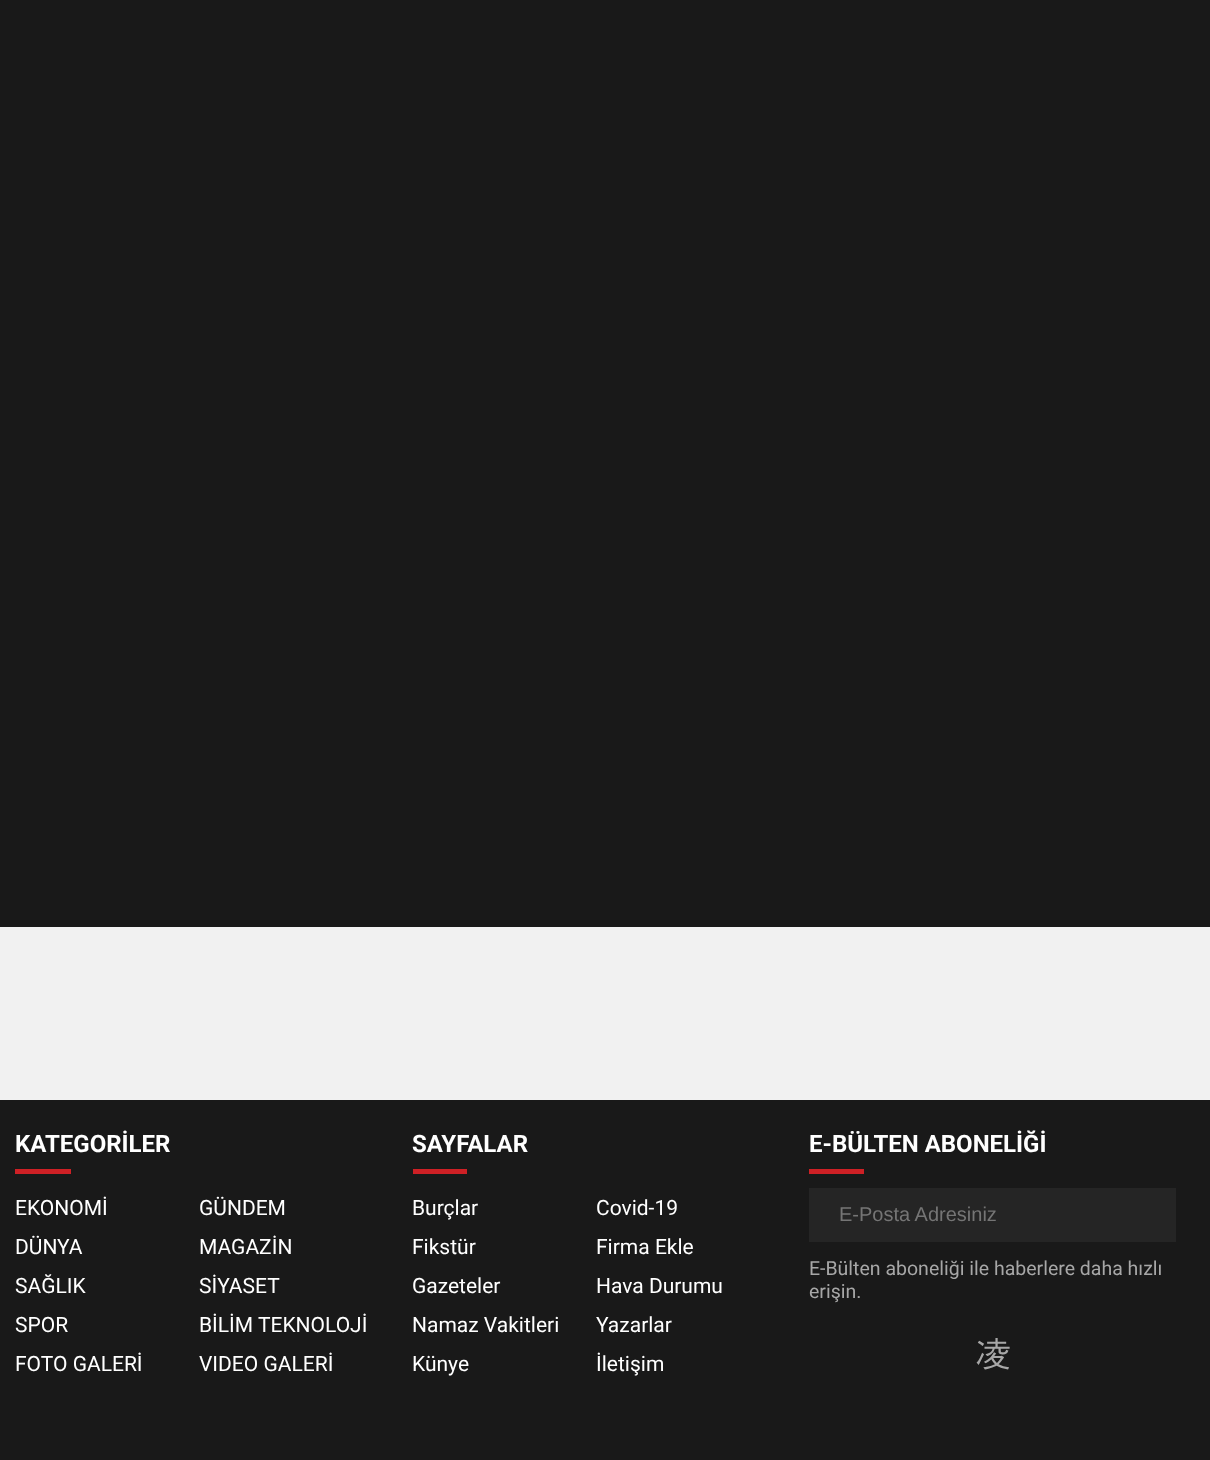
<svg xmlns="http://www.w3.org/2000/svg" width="1210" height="1460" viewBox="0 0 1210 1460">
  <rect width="100%" height="100%" fill="#f1f1f1"/>
  <rect x="0" y="0" width="1210" height="927" fill="#191919"/>
  <rect x="0" y="1100" width="1210" height="360" fill="#191919"/>
  <text x="15" y="1152" font-family="Roboto" font-size="24" font-weight="bold" fill="#ffffff">KATEGORİLER</text>
  <rect x="15" y="1169" width="56" height="5" fill="#ce2025"/>
  <text x="15" y="1215" font-family="Roboto" font-size="21" fill="#ffffff">EKONOMİ</text>
  <text x="199" y="1215" font-family="Roboto" font-size="21" fill="#ffffff">GÜNDEM</text>
  <text x="15" y="1254" font-family="Roboto" font-size="21" fill="#ffffff">DÜNYA</text>
  <text x="199" y="1254" font-family="Roboto" font-size="21" fill="#ffffff">MAGAZİN</text>
  <text x="15" y="1293" font-family="Roboto" font-size="21" fill="#ffffff">SAĞLIK</text>
  <text x="199" y="1293" font-family="Roboto" font-size="21" fill="#ffffff">SİYASET</text>
  <text x="15" y="1332" font-family="Roboto" font-size="21" fill="#ffffff">SPOR</text>
  <text x="199" y="1332" font-family="Roboto" font-size="21" fill="#ffffff">BİLİM TEKNOLOJİ</text>
  <text x="15" y="1371" font-family="Roboto" font-size="21" fill="#ffffff">FOTO GALERİ</text>
  <text x="199" y="1371" font-family="Roboto" font-size="21" fill="#ffffff">VIDEO GALERİ</text>
  <text x="412" y="1152" font-family="Roboto" font-size="24" font-weight="bold" fill="#ffffff">SAYFALAR</text>
  <rect x="413" y="1169" width="54" height="5" fill="#ce2025"/>
  <text x="412" y="1215" font-family="Roboto" font-size="21" fill="#ffffff">Burçlar</text>
  <text x="596" y="1215" font-family="Roboto" font-size="21" fill="#ffffff">Covid-19</text>
  <text x="412" y="1254" font-family="Roboto" font-size="21" fill="#ffffff">Fikstür</text>
  <text x="596" y="1254" font-family="Roboto" font-size="21" fill="#ffffff">Firma Ekle</text>
  <text x="412" y="1293" font-family="Roboto" font-size="21" fill="#ffffff">Gazeteler</text>
  <text x="596" y="1293" font-family="Roboto" font-size="21" fill="#ffffff">Hava Durumu</text>
  <text x="412" y="1332" font-family="Roboto" font-size="21" fill="#ffffff">Namaz Vakitleri</text>
  <text x="596" y="1332" font-family="Roboto" font-size="21" fill="#ffffff">Yazarlar</text>
  <text x="412" y="1371" font-family="Roboto" font-size="21" fill="#ffffff">Künye</text>
  <text x="596" y="1371" font-family="Roboto" font-size="21" fill="#ffffff">İletişim</text>
  <text x="809" y="1152" font-family="Roboto" font-size="24" font-weight="bold" fill="#ffffff">E-BÜLTEN ABONELİĞİ</text>
  <rect x="809" y="1169" width="55" height="5" fill="#ce2025"/>
  <rect x="809" y="1188" width="367" height="54" fill="#252525"/>
  <text x="839" y="1221" font-family="Liberation Sans" font-size="20" fill="#757575">E-Posta Adresiniz</text>
  <text x="809" y="1275" font-family="Roboto" font-size="19.5" fill="#a7a7a7">E-Bülten aboneliği ile haberlere daha hızlı</text>
  <text x="809" y="1298" font-family="Roboto" font-size="19.5" fill="#a7a7a7">erişin.</text>
  <text x="975" y="1365" font-family="WenQuanYi Zen Hei" font-size="36" font-weight="500" fill="#a7a7a7">凌</text>
</svg>
